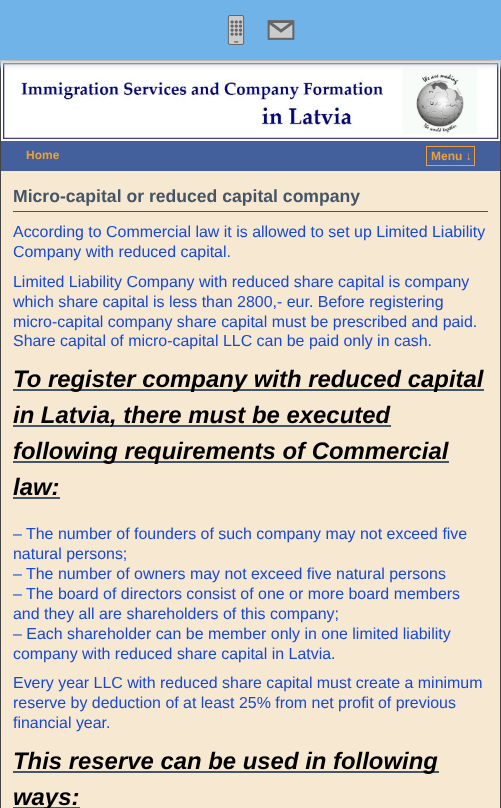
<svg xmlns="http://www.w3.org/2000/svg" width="501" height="808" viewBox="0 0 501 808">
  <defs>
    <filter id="blur1" x="-50%" y="-200%" width="200%" height="500%"><feGaussianBlur stdDeviation="1.5"/></filter>
    <filter id="blur2" x="-50%" y="-200%" width="200%" height="500%"><feGaussianBlur stdDeviation="3"/></filter>
  </defs>
  <rect width="100%" height="100%" fill="#ffffff"/>
  <image x="0" y="60" width="501" height="10" href="img1.png"/>
  <rect x="-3" y="57" width="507" height="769" rx="13" fill="#7f7f7f" fill-opacity="0.25" filter="url(#blur1)"/>
  <rect x="0.5" y="60.5" width="500" height="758" rx="9.5" fill="#f7e8d2" stroke="#444444"/>
  <image x="1" y="61" width="499" height="80" href="img4.png"/>
  <rect x="-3" y="-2" width="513" height="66" fill="#cccccc" filter="url(#blur2)"/>
  <rect x="0" y="0" width="501" height="60" fill="#6fb3e8"/>
  <image x="227" y="15" width="18" height="30" href="img2.png"/>
  <image x="267" y="20" width="28" height="20" href="img3.png"/>
  <rect x="1" y="141" width="499" height="30" fill="#43609c"/>
  <text x="26" y="159" font-family="Liberation Sans" font-size="12" font-weight="bold" fill="#ed9f38">Home</text>
  <rect x="426.5" y="146.5" width="48" height="19" fill="none" stroke="#ed9f38"/>
  <text x="431" y="160" font-family="Liberation Sans" font-size="12" font-weight="bold" fill="#ed9f38">Menu ↓</text>
  <rect x="13" y="211" width="475" height="1" fill="#445566"/>
  <text x="13" y="202" font-family="Liberation Sans" font-size="17.6" font-weight="bold" fill="#445566">Micro-capital or reduced capital company</text>
  <text x="13" y="237" font-family="Liberation Sans" font-size="15.95" fill="#1749d1">According to Commercial law it is allowed to set up Limited Liability</text>
  <text x="13" y="257" font-family="Liberation Sans" font-size="15.95" fill="#1749d1">Company with reduced capital.</text>
  <text x="13" y="287" font-family="Liberation Sans" font-size="15.95" fill="#1749d1">Limited Liability Company with reduced share capital is company</text>
  <text x="13" y="307" font-family="Liberation Sans" font-size="15.95" fill="#1749d1">which share capital is less than 2800,- eur. Before registering</text>
  <text x="13" y="327" font-family="Liberation Sans" font-size="15.95" fill="#1749d1">micro-capital company share capital must be prescribed and paid.</text>
  <text x="13" y="346" font-family="Liberation Sans" font-size="15.95" fill="#1749d1">Share capital of micro-capital LLC can be paid only in cash.</text>
  <rect x="13" y="389" width="471" height="2" fill="#445566"/>
  <text x="13" y="387" font-family="Liberation Sans" font-size="23.9" font-weight="bold" font-style="italic" fill="#000000">To register company with reduced capital</text>
  <rect x="13" y="425" width="378" height="2" fill="#445566"/>
  <text x="13" y="423" font-family="Liberation Sans" font-size="23.9" font-weight="bold" font-style="italic" fill="#000000">in Latvia, there must be executed</text>
  <rect x="13" y="461" width="436" height="2" fill="#445566"/>
  <text x="13" y="459" font-family="Liberation Sans" font-size="23.9" font-weight="bold" font-style="italic" fill="#000000">following requirements of Commercial</text>
  <text x="13" y="495" font-family="Liberation Sans" font-size="23.9" font-weight="bold" font-style="italic" fill="#000000">law:</text>
  <rect x="13" y="497" width="47" height="2" fill="#445566"/>
  <text x="13" y="539" font-family="Liberation Sans" font-size="15.95" fill="#1749d1">– The number of founders of such company may not exceed five</text>
  <text x="13" y="559" font-family="Liberation Sans" font-size="15.95" fill="#1749d1">natural persons;</text>
  <text x="13" y="579" font-family="Liberation Sans" font-size="15.95" fill="#1749d1">– The number of owners may not exceed five natural persons</text>
  <text x="13" y="599" font-family="Liberation Sans" font-size="15.95" fill="#1749d1">– The board of directors consist of one or more board members</text>
  <text x="13" y="619" font-family="Liberation Sans" font-size="15.95" fill="#1749d1">and they all are shareholders of this company;</text>
  <text x="13" y="639" font-family="Liberation Sans" font-size="15.95" fill="#1749d1">– Each shareholder can be member only in one limited liability</text>
  <text x="13" y="659" font-family="Liberation Sans" font-size="15.95" fill="#1749d1">company with reduced share capital in Latvia.</text>
  <text x="13" y="688" font-family="Liberation Sans" font-size="15.95" fill="#1749d1">Every year LLC with reduced share capital must create a minimum</text>
  <text x="13" y="708" font-family="Liberation Sans" font-size="15.95" fill="#1749d1">reserve by deduction of at least 25% from net profit of previous</text>
  <text x="13" y="728" font-family="Liberation Sans" font-size="15.95" fill="#1749d1">financial year.</text>
  <rect x="13" y="771" width="426" height="2" fill="#445566"/>
  <text x="13" y="769" font-family="Liberation Sans" font-size="23.9" font-weight="bold" font-style="italic" fill="#000000">This reserve can be used in following</text>
  <rect x="13" y="807" width="67" height="1" fill="#445566"/>
  <text x="13" y="805" font-family="Liberation Sans" font-size="23.9" font-weight="bold" font-style="italic" fill="#000000">ways:</text>
</svg>
